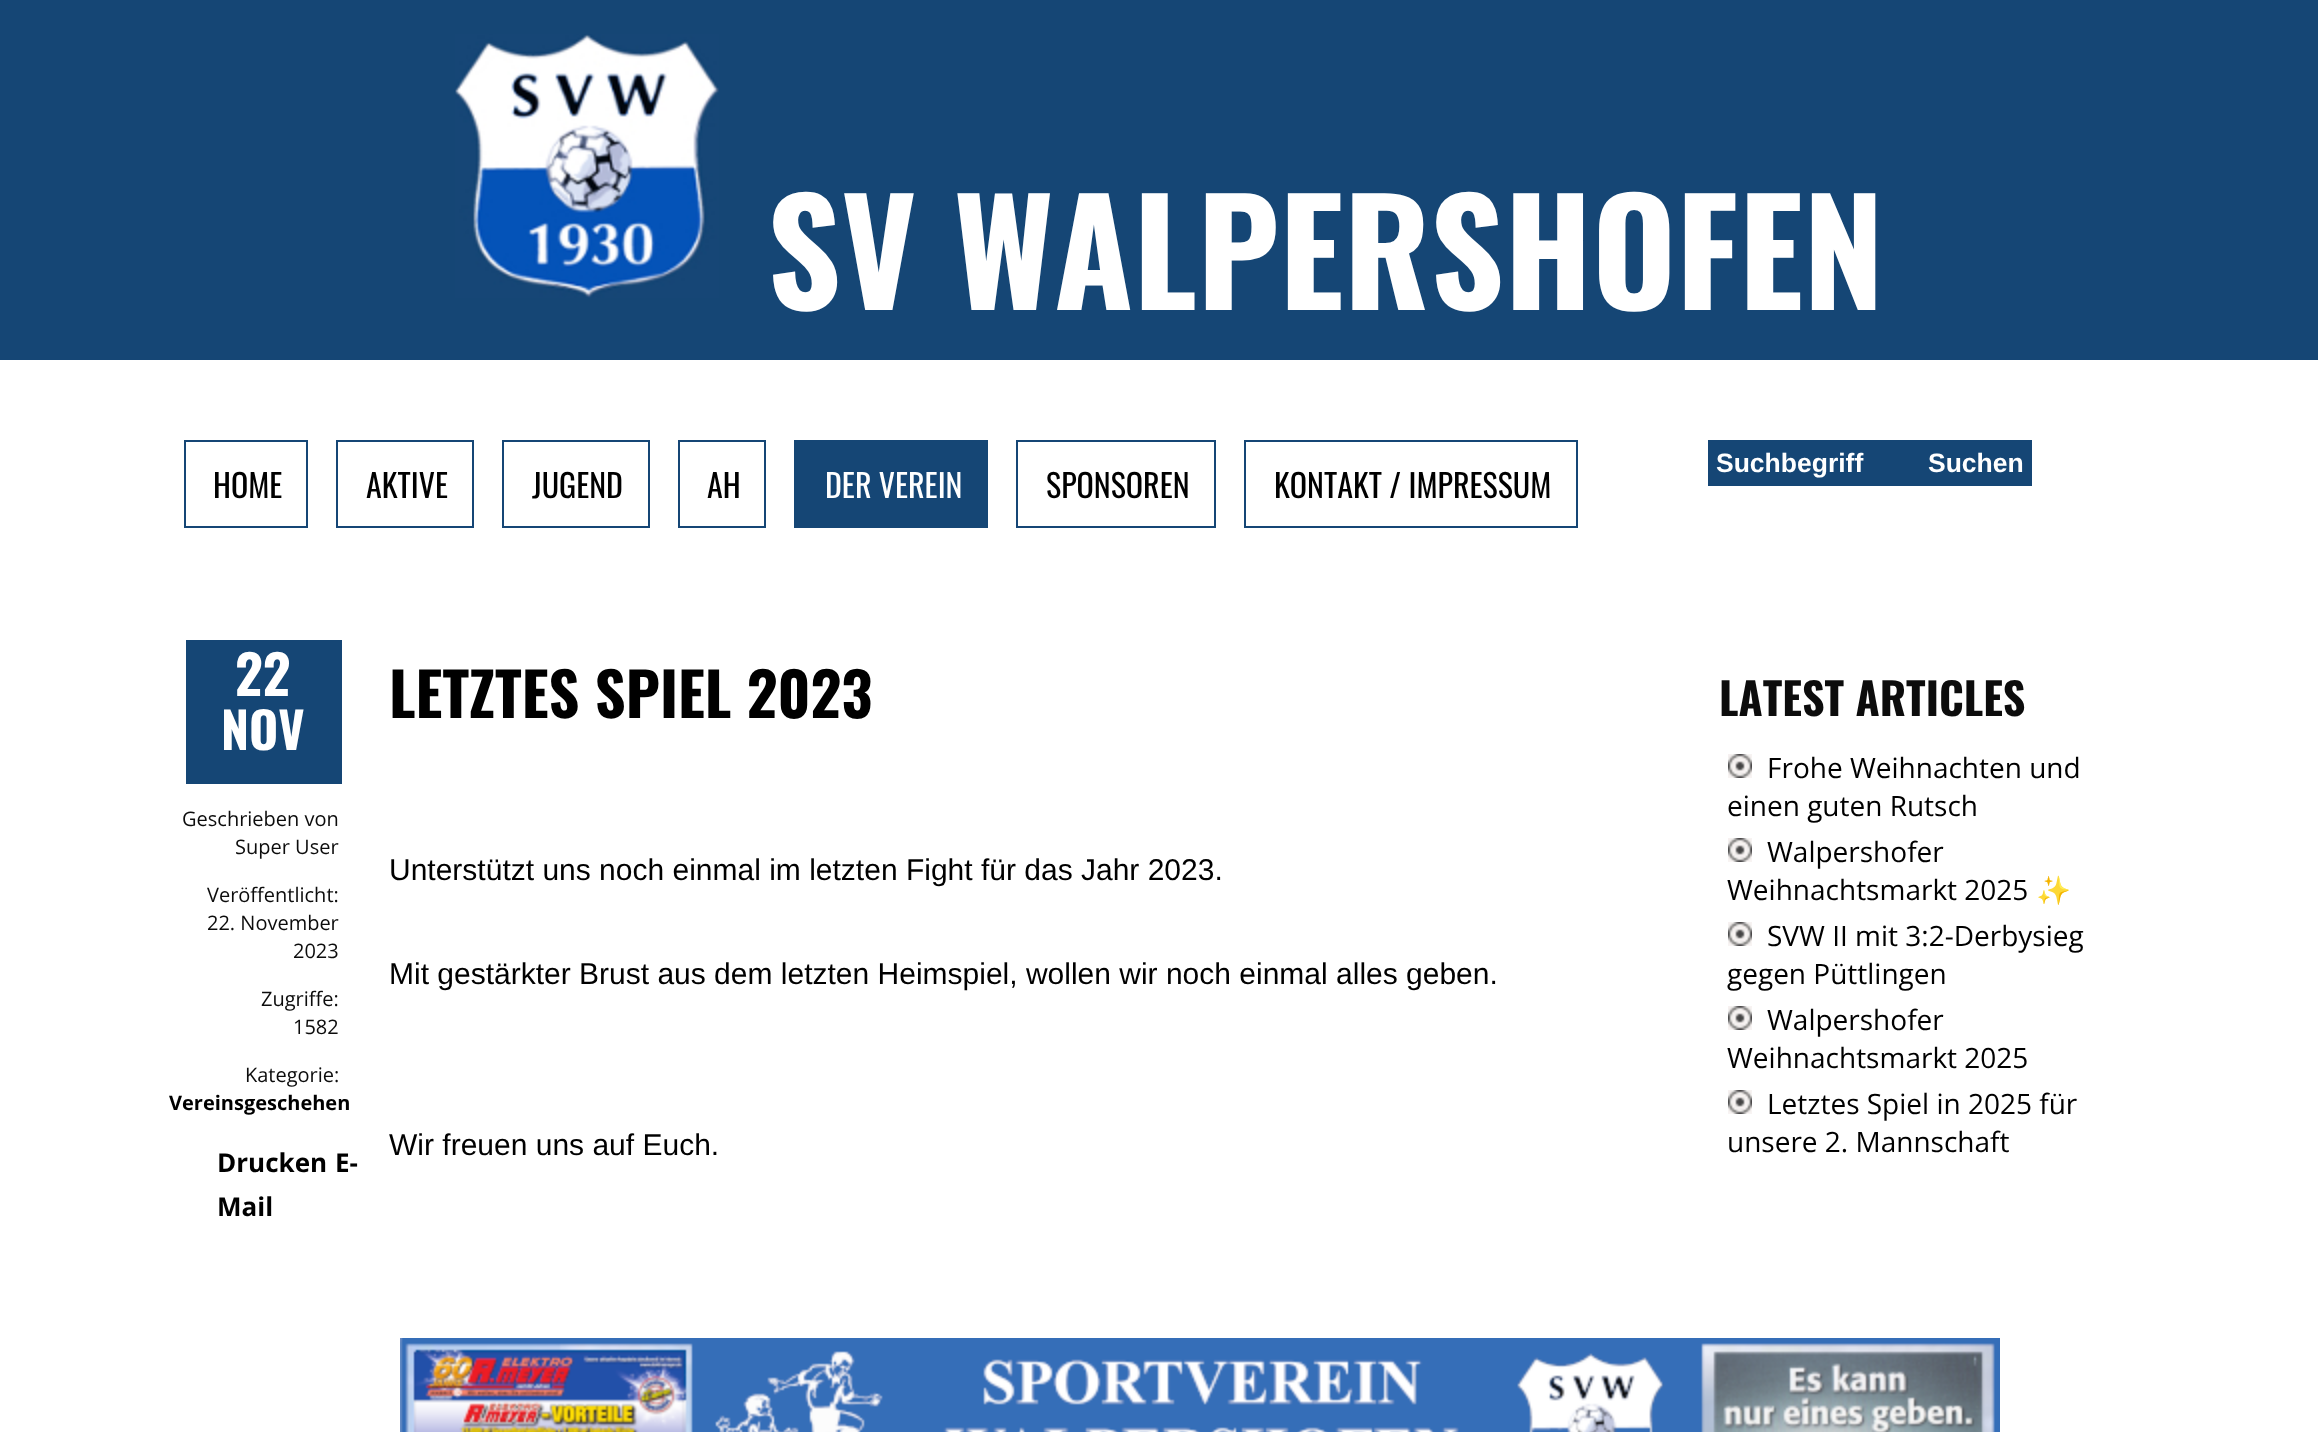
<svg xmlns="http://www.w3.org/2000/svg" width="2318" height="1432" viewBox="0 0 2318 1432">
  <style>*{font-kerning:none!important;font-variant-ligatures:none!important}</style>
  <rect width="100%" height="100%" fill="#ffffff"/>
  <rect x="0" y="0" width="2318" height="360" fill="#154675"/>
  <image x="455" y="34" width="264" height="264" href="img1.png"/>
  <text x="767" y="310" font-family="Oswald" font-size="144" font-weight="bold" fill="#ffffff">SV WALPERSHOFEN</text>
  <rect x="1708" y="440" width="324" height="46" fill="#154675"/>
  <text x="1716" y="472" font-family="Liberation Sans" font-size="26.5" font-weight="bold" fill="#ffffff">Suchbegriff</text>
  <text x="1928" y="472" font-family="Liberation Sans" font-size="26.5" font-weight="bold" fill="#ffffff">Suchen</text>
  <rect x="185" y="441" width="122" height="86" fill="none" stroke="#154675" stroke-width="2"/>
  <text x="213" y="498" font-family="Oswald" font-size="32" fill="#000000">HOME</text>
  <rect x="337" y="441" width="136" height="86" fill="none" stroke="#154675" stroke-width="2"/>
  <text x="366" y="498" font-family="Oswald" font-size="32" fill="#000000">AKTIVE</text>
  <rect x="503" y="441" width="146" height="86" fill="none" stroke="#154675" stroke-width="2"/>
  <text x="532" y="498" font-family="Oswald" font-size="32" fill="#000000">JUGEND</text>
  <rect x="679" y="441" width="86" height="86" fill="none" stroke="#154675" stroke-width="2"/>
  <text x="707" y="498" font-family="Oswald" font-size="32" fill="#000000">AH</text>
  <rect x="794" y="440" width="194" height="88" fill="#154675"/>
  <text x="825" y="498" font-family="Oswald" font-size="32" fill="#ffffff">DER VEREIN</text>
  <rect x="1017" y="441" width="198" height="86" fill="none" stroke="#154675" stroke-width="2"/>
  <text x="1046" y="498" font-family="Oswald" font-size="32" fill="#000000">SPONSOREN</text>
  <rect x="1245" y="441" width="332" height="86" fill="none" stroke="#154675" stroke-width="2"/>
  <text x="1274" y="498" font-family="Oswald" font-size="32" fill="#000000">KONTAKT / IMPRESSUM</text>
  <rect x="186" y="640" width="156" height="144" fill="#154675"/>
  <text x="235" y="696" font-family="Oswald" font-size="54" font-weight="bold" fill="#ffffff">22</text>
  <text x="221" y="750" font-family="Oswald" font-size="50" font-weight="bold" fill="#ffffff">NOV</text>
  <text x="182" y="826" font-family="Open Sans" font-size="20" fill="#0c0c0c">Geschrieben von</text>
  <text x="235" y="854" font-family="Open Sans" font-size="20" fill="#0c0c0c">Super User</text>
  <text x="207" y="902" font-family="Open Sans" font-size="20" fill="#0c0c0c">Veröffentlicht:</text>
  <text x="207" y="930" font-family="Open Sans" font-size="20" fill="#0c0c0c">22. November</text>
  <text x="293" y="958" font-family="Open Sans" font-size="20" fill="#0c0c0c">2023</text>
  <text x="261" y="1006" font-family="Open Sans" font-size="20" fill="#0c0c0c">Zugriffe:</text>
  <text x="293" y="1034" font-family="Open Sans" font-size="20" fill="#0c0c0c">1582</text>
  <text x="245" y="1082" font-family="Open Sans" font-size="20" fill="#0c0c0c">Kategorie:</text>
  <text x="169" y="1110" font-family="Open Sans" font-size="20" font-weight="bold" fill="#000000">Vereinsgeschehen</text>
  <text x="217" y="1172" font-family="Open Sans" font-size="26" font-weight="bold" fill="#000000">Drucken</text>
  <text x="335" y="1172" font-family="Open Sans" font-size="26" font-weight="bold" fill="#000000">E-</text>
  <text x="217" y="1216" font-family="Open Sans" font-size="26" font-weight="bold" fill="#000000">Mail</text>
  <text x="389" y="718" font-family="Oswald" font-size="60" font-weight="bold" fill="#000000">LETZTES SPIEL 2023</text>
  <text x="389" y="880" font-family="Liberation Sans" font-size="30" fill="#000000">Unterstützt uns noch einmal im letzten Fight für das Jahr 2023.</text>
  <text x="389" y="984" font-family="Liberation Sans" font-size="30" fill="#000000">Mit gestärkter Brust aus dem letzten Heimspiel, wollen wir noch einmal alles geben.</text>
  <text x="389" y="1155" font-family="Liberation Sans" font-size="30" fill="#000000">Wir freuen uns auf Euch.</text>
  <image x="400" y="1338" width="1600" height="94" href="img2.png"/>
  <text x="1719" y="716" font-family="Oswald" font-size="44" font-weight="bold" fill="#0c0c0c">LATEST ARTICLES</text>
  <image x="1728" y="754" width="24" height="24" href="img3.png"/>
  <text x="1767" y="778" font-family="Open Sans" font-size="28" fill="#000000">Frohe Weihnachten und</text>
  <text x="1727" y="816" font-family="Open Sans" font-size="28" fill="#000000">einen guten Rutsch</text>
  <image x="1728" y="838" width="24" height="24" href="img3.png"/>
  <text x="1767" y="862" font-family="Open Sans" font-size="28" fill="#000000">Walpershofer</text>
  <text x="1727" y="900" font-family="Open Sans" font-size="28" fill="#000000">Weihnachtsmarkt 2025</text>
  <text x="2036" y="900" font-family="Noto Color Emoji" font-size="28" fill="#000000">✨</text>
  <image x="1728" y="922" width="24" height="24" href="img3.png"/>
  <text x="1767" y="946" font-family="Open Sans" font-size="28" fill="#000000">SVW II mit 3:2-Derbysieg</text>
  <text x="1727" y="984" font-family="Open Sans" font-size="28" fill="#000000">gegen Püttlingen</text>
  <image x="1728" y="1006" width="24" height="24" href="img3.png"/>
  <text x="1767" y="1030" font-family="Open Sans" font-size="28" fill="#000000">Walpershofer</text>
  <text x="1727" y="1068" font-family="Open Sans" font-size="28" fill="#000000">Weihnachtsmarkt 2025</text>
  <image x="1728" y="1090" width="24" height="24" href="img3.png"/>
  <text x="1767" y="1114" font-family="Open Sans" font-size="28" fill="#000000">Letztes Spiel in 2025 für</text>
  <text x="1727" y="1152" font-family="Open Sans" font-size="28" fill="#000000">unsere 2. Mannschaft</text>
</svg>
